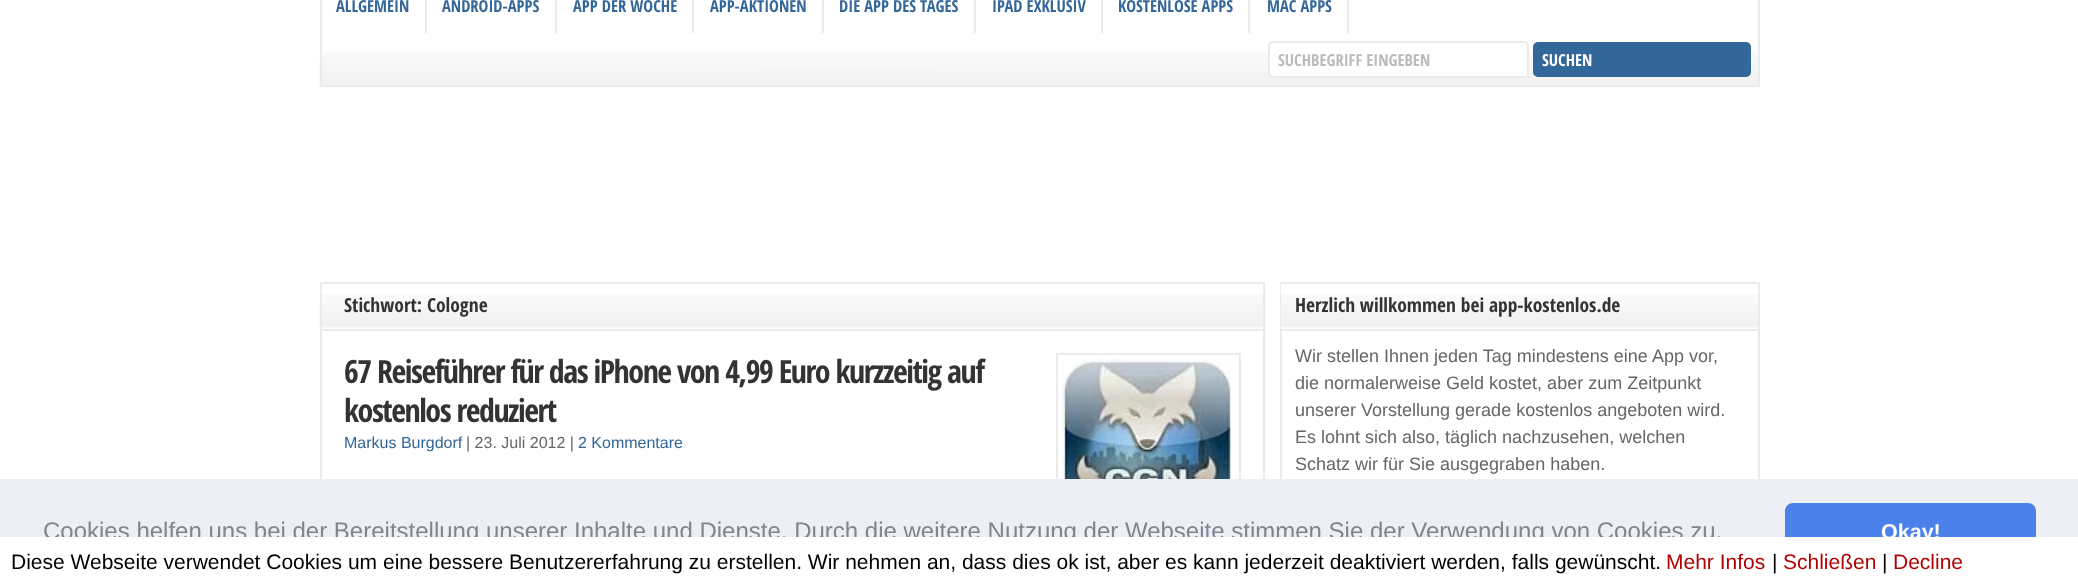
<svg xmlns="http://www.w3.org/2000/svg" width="2078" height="585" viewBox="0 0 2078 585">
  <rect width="100%" height="100%" fill="#ffffff"/>
  <image x="319" y="52" width="1439" height="33" href="img1.png"/>
  <rect x="321" y="-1" width="1438" height="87" fill="none" stroke="#ebebeb" stroke-width="2"/>
  <rect x="425" y="0" width="2" height="33" fill="#ebebeb"/>
  <text x="336" y="12" font-family="Open Sans Condensed" font-size="16.5" font-weight="bold" fill="#336699">ALLGEMEIN</text>
  <rect x="555" y="0" width="2" height="33" fill="#ebebeb"/>
  <text x="442" y="12" font-family="Open Sans Condensed" font-size="16.5" font-weight="bold" fill="#336699">ANDROID-APPS</text>
  <rect x="692" y="0" width="2" height="33" fill="#ebebeb"/>
  <text x="573" y="12" font-family="Open Sans Condensed" font-size="16.5" font-weight="bold" fill="#336699">APP DER WOCHE</text>
  <rect x="822" y="0" width="2" height="33" fill="#ebebeb"/>
  <text x="710" y="12" font-family="Open Sans Condensed" font-size="16.5" font-weight="bold" fill="#336699">APP-AKTIONEN</text>
  <rect x="974" y="0" width="2" height="33" fill="#ebebeb"/>
  <text x="839" y="12" font-family="Open Sans Condensed" font-size="16.5" font-weight="bold" fill="#336699">DIE APP DES TAGES</text>
  <rect x="1101" y="0" width="2" height="33" fill="#ebebeb"/>
  <text x="992" y="12" font-family="Open Sans Condensed" font-size="16.5" font-weight="bold" fill="#336699">IPAD EXKLUSIV</text>
  <rect x="1248" y="0" width="2" height="33" fill="#ebebeb"/>
  <text x="1118" y="12" font-family="Open Sans Condensed" font-size="16.5" font-weight="bold" fill="#336699">KOSTENLOSE APPS</text>
  <rect x="1347" y="0" width="2" height="33" fill="#ebebeb"/>
  <text x="1267" y="12" font-family="Open Sans Condensed" font-size="16.5" font-weight="bold" fill="#336699">MAC APPS</text>
  <rect x="1269" y="42" width="259" height="35" rx="4" fill="#ffffff" stroke="#ebebeb" stroke-width="2"/>
  <text x="1278" y="66" font-family="Open Sans Condensed" font-size="16.5" font-weight="bold" fill="#bbbbbb">SUCHBEGRIFF EINGEBEN</text>
  <rect x="1534" y="43" width="216" height="33" rx="4" fill="#336699" stroke="#336699" stroke-width="2"/>
  <text x="1542" y="66" font-family="Open Sans Condensed" font-size="16.5" font-weight="bold" fill="#ffffff">SUCHEN</text>
  <image x="319" y="294" width="944" height="34" href="img2.png"/>
  <rect x="320" y="282" width="945" height="2" fill="#ebebeb"/>
  <rect x="1263" y="282" width="2" height="47" fill="#ebebeb"/>
  <rect x="320" y="282" width="2" height="47" fill="#ebebeb"/>
  <text x="344" y="312" font-family="Open Sans Condensed" font-size="19.5" font-weight="bold" fill="#333333">Stichwort: Cologne</text>
  <rect x="321" y="330" width="943" height="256" fill="none" stroke="#ebebeb" stroke-width="2"/>
  <text x="344" y="383" font-family="Open Sans Condensed" font-size="32" font-weight="bold" letter-spacing="-1.5" fill="#333333">67 Reiseführer für das iPhone von 4,99 Euro kurzzeitig auf</text>
  <text x="344" y="422" font-family="Open Sans Condensed" font-size="32" font-weight="bold" letter-spacing="-1.5" fill="#333333">kostenlos reduziert</text>
  <rect x="1057" y="354" width="183" height="185" fill="none" stroke="#ebebeb" stroke-width="2"/>
  <image x="1062" y="358" width="170" height="121" href="img3.png"/>
  <text x="344" y="448" font-family="Liberation Sans" font-size="16" fill="#336699">Markus Burgdorf</text>
  <text x="466" y="448" font-family="Liberation Sans" font-size="16" fill="#666666">| 23. Juli 2012 |</text>
  <text x="578" y="448" font-family="Liberation Sans" font-size="16" fill="#336699">2 Kommentare</text>
  <rect x="1281" y="283" width="478" height="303" fill="none" stroke="#ebebeb" stroke-width="2"/>
  <rect x="1281" y="284" width="1" height="45" fill="#ffffff"/>
  <image x="1281" y="294" width="477" height="34" href="img4.png"/>
  <rect x="1281" y="329" width="477" height="2" fill="#ebebeb"/>
  <text x="1295" y="312" font-family="Open Sans Condensed" font-size="19.5" font-weight="bold" fill="#333333">Herzlich willkommen bei app-kostenlos.de</text>
  <text x="1295" y="362" font-family="Liberation Sans" font-size="18" fill="#666666">Wir stellen Ihnen jeden Tag mindestens eine App vor,</text>
  <text x="1295" y="389" font-family="Liberation Sans" font-size="18" fill="#666666">die normalerweise Geld kostet, aber zum Zeitpunkt</text>
  <text x="1295" y="416" font-family="Liberation Sans" font-size="18" fill="#666666">unserer Vorstellung gerade kostenlos angeboten wird.</text>
  <text x="1295" y="443" font-family="Liberation Sans" font-size="18" fill="#666666">Es lohnt sich also, täglich nachzusehen, welchen</text>
  <text x="1295" y="470" font-family="Liberation Sans" font-size="18" fill="#666666">Schatz wir für Sie ausgegraben haben.</text>
  <rect x="0" y="479" width="2078" height="58" fill="#edeff5"/>
  <text x="43" y="539" font-family="Liberation Sans" font-size="24" fill="#838391">Cookies helfen uns bei der Bereitstellung unserer Inhalte und Dienste. Durch die weitere Nutzung der Webseite stimmen Sie der Verwendung von Cookies zu.</text>
  <rect x="1785" y="503" width="251" height="58" rx="8" fill="#4b81e8"/>
  <text x="1881" y="539" font-family="Liberation Sans" font-size="21.5" font-weight="bold" fill="#ffffff">Okay!</text>
  <rect x="46" y="537" width="1990" height="48" fill="#ffffff"/>
  <text x="11" y="569" font-family="Liberation Sans" font-size="21" fill="#000000">Diese Webseite verwendet Cookies um eine bessere Benutzererfahrung zu erstellen. Wir nehmen an, dass dies ok ist, aber es kann jederzeit deaktiviert werden, falls gewünscht.</text>
  <text x="1666" y="569" font-family="Liberation Sans" font-size="21" fill="#b30000">Mehr Infos</text>
  <text x="1772" y="569" font-family="Liberation Sans" font-size="21" fill="#000000">|</text>
  <text x="1783" y="569" font-family="Liberation Sans" font-size="21" fill="#b30000">Schließen</text>
  <text x="1882" y="569" font-family="Liberation Sans" font-size="21" fill="#000000">|</text>
  <text x="1893" y="569" font-family="Liberation Sans" font-size="21" fill="#b30000">Decline</text>
</svg>
